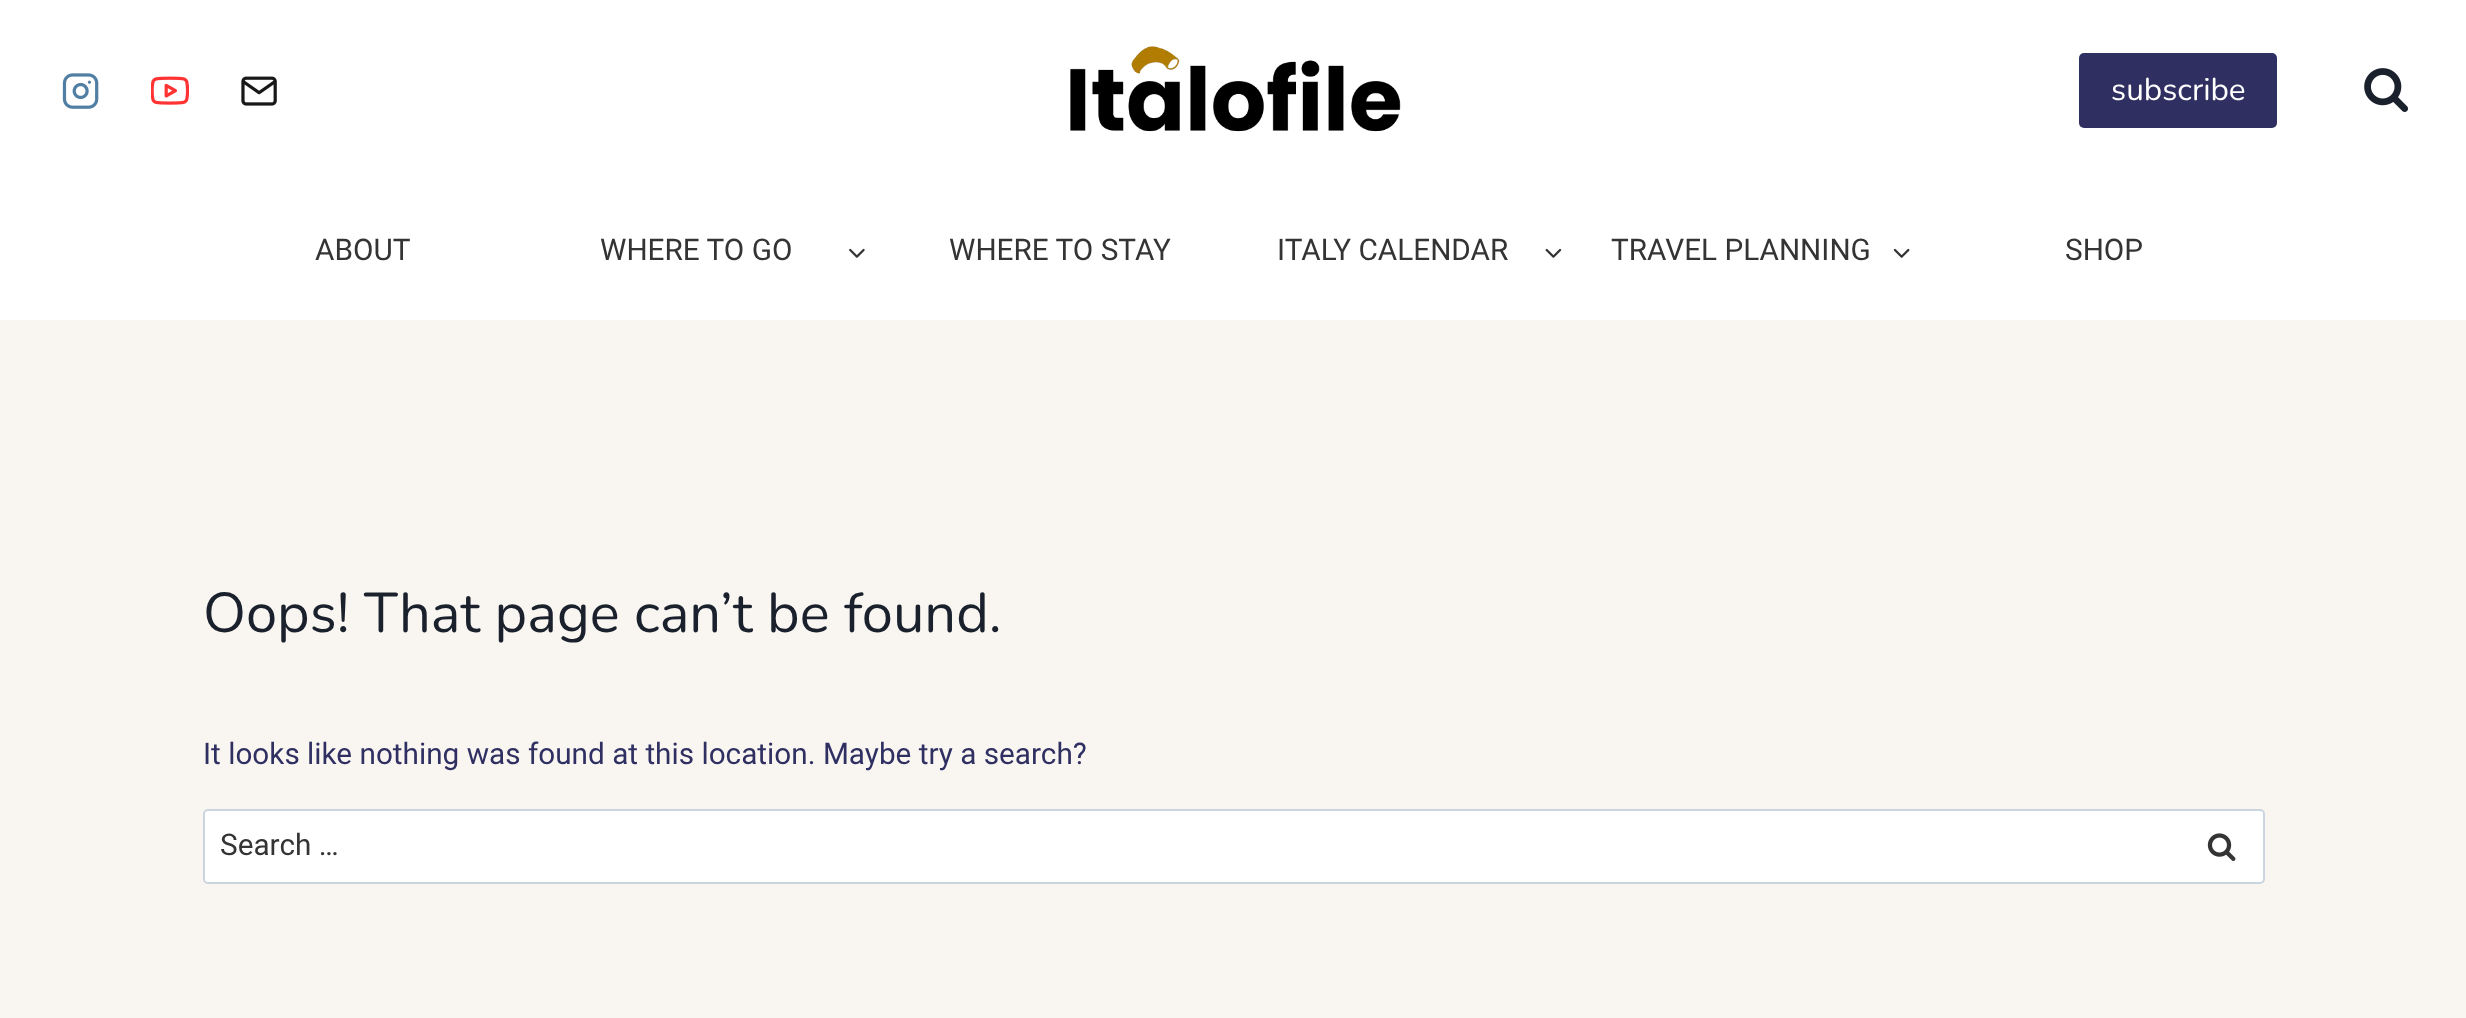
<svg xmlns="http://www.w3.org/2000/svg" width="2466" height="1018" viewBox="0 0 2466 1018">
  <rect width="100%" height="100%" fill="#f9f6f2"/>
  <rect x="0" y="0" width="2466" height="320" fill="#ffffff"/>
  <image x="62" y="73" width="37" height="36" href="img1.png"/>
  <image x="151" y="76" width="38" height="29" href="img2.png"/>
  <image x="241" y="76" width="36" height="30" href="img3.png"/>
  <image x="1070" y="46" width="331" height="86" href="img4.png"/>
  <rect x="2079" y="53" width="198" height="75" rx="5" fill="#2f3061"/>
  <text x="2111" y="100" font-family="Nunito" font-size="31.5" fill="#ffffff">subscribe</text>
  <image x="2364" y="68" width="44" height="44" href="img5.png"/>
  <text x="315" y="260" font-family="Roboto" font-size="29.75" fill="#343434">ABOUT</text>
  <text x="600" y="260" font-family="Roboto" font-size="29.75" fill="#343434">WHERE TO GO</text>
  <image x="849" y="248" width="16" height="10" href="img6.png"/>
  <text x="949" y="260" font-family="Roboto" font-size="29.75" fill="#343434">WHERE TO STAY</text>
  <text x="1277" y="260" font-family="Roboto" font-size="29.75" fill="#343434">ITALY CALENDAR</text>
  <image x="1545" y="248" width="17" height="10" href="img7.png"/>
  <text x="1611" y="260" font-family="Roboto" font-size="29.75" fill="#343434">TRAVEL PLANNING</text>
  <image x="1893" y="248" width="17" height="10" href="img8.png"/>
  <text x="2065" y="260" font-family="Roboto" font-size="29.75" fill="#343434">SHOP</text>
  <text x="203" y="632" font-family="Nunito" font-size="56" fill="#1a202c">Oops! That page can’t be found.</text>
  <text x="203" y="764" font-family="Roboto" font-size="29.75" fill="#2f3061">It looks like nothing was found at this location. Maybe try a search?</text>
  <rect x="204" y="810" width="2060" height="73" rx="4" fill="#ffffff" stroke="#cbd5e0" stroke-width="2"/>
  <text x="220" y="855" font-family="Roboto" font-size="29.75" fill="#343434">Search …</text>
  <image x="2207" y="833" width="29" height="28" href="img9.png"/>
</svg>
